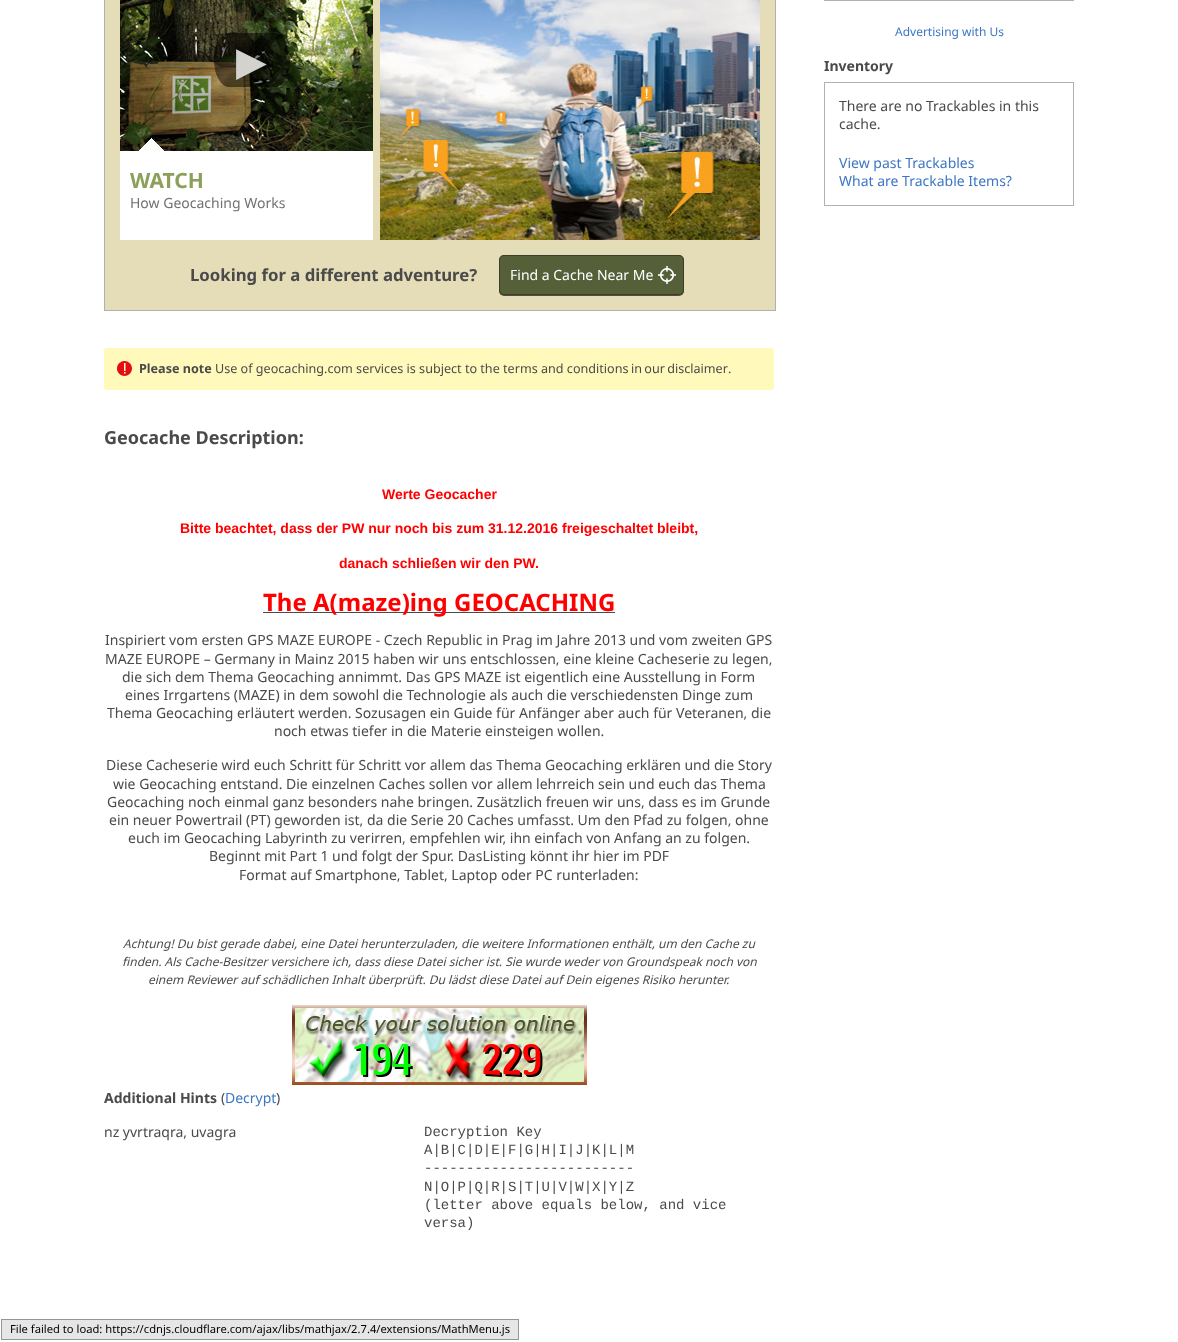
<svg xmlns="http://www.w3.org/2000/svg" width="1178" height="1342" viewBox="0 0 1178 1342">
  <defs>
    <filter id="blur1" x="-50%" y="-200%" width="200%" height="500%"><feGaussianBlur stdDeviation="0.5"/></filter>
  </defs>
  <rect width="100%" height="100%" fill="#ffffff"/>
  <rect x="104.5" y="-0.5" width="671" height="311" fill="#e5ddb7" stroke="#b0b0b0"/>
  <rect x="120" y="151" width="253" height="89" fill="#ffffff"/>
  <image x="120" y="0" width="253" height="151" href="img1.png"/>
  <path d="M229 33H275C283 33 290 45 290 60C290 75 283 87 275 87H229C221 87 214 75 214 60C214 45 221 33 229 33Z" fill="#000000" fill-opacity="0.5"/>
  <text x="236" y="75" font-family="DejaVu Sans" font-size="40" fill="#d3d2cf">▶</text>
  <text x="130" y="188" font-family="Noto Sans" font-size="21" font-weight="bold" fill="#8ba059">WATCH</text>
  <text x="130" y="208" font-family="Noto Sans" font-size="14" fill="#717073">How Geocaching Works</text>
  <image x="380" y="0" width="380" height="240" href="img2.png"/>
  <text x="190" y="281" font-family="Noto Sans" font-size="16.75" font-weight="bold" fill="#4a4a4a">Looking for a different adventure?</text>
  <rect x="499" y="256" width="185" height="40" rx="5" fill="#594a42" filter="url(#blur1)"/>
  <rect x="499" y="255" width="185" height="40" rx="5" fill="#556039"/>
  <image x="658" y="266" width="18" height="18" href="img3.png"/>
  <rect x="499.5" y="255.5" width="184" height="39" rx="4.5" fill="none" stroke="#394027"/>
  <text x="510" y="280" font-family="Noto Sans" font-size="14" fill="#ffffff">Find a Cache Near Me</text>
  <rect x="104" y="348" width="670" height="42" rx="3" fill="#fff9bb"/>
  <image x="117" y="361" width="15" height="15" href="img4.png"/>
  <text x="139" y="373" font-family="Noto Sans" font-size="12.6" font-weight="bold" fill="#4a4a4a">Please note</text>
  <text x="215" y="373" font-family="Noto Sans" font-size="12.6" fill="#4a4a4a">Use of geocaching.com services is subject to the terms and conditions</text>
  <text x="631" y="373" word-spacing="-1" font-family="Noto Sans" font-size="12.6" fill="#4a4a4a">in our disclaimer</text>
  <text x="728" y="373" font-family="Noto Sans" font-size="12.6" fill="#4a4a4a">.</text>
  <text x="104" y="444" font-family="Noto Sans" font-size="18" font-weight="bold" fill="#4a4a4a">Geocache Description:</text>
  <text x="382" y="499" font-family="Liberation Sans" font-size="14" font-weight="bold" fill="#ff0000">Werte Geocacher</text>
  <text x="180" y="533" font-family="Liberation Sans" font-size="14" font-weight="bold" fill="#ff0000">Bitte beachtet, dass der PW nur noch bis zum 31.12.2016 freigeschaltet bleibt,</text>
  <text x="339" y="568" font-family="Liberation Sans" font-size="14" font-weight="bold" fill="#ff0000">danach schließen wir den PW.</text>
  <rect x="263" y="612" width="352" height="1" fill="#4a4a4a"/>
  <text x="263" y="611" font-family="Noto Sans" font-size="24" font-weight="bold" fill="#ff0000">The A(maze)ing GEOCACHING</text>
  <text x="105" y="645" font-family="Noto Sans" font-size="14" fill="#4a4a4a">Inspiriert vom ersten GPS MAZE EUROPE - Czech Republic in Prag im Jahre 2013 und vom zweiten GPS</text>
  <text x="105" y="664" font-family="Noto Sans" font-size="14" fill="#4a4a4a">MAZE EUROPE – Germany in Mainz 2015 haben wir uns entschlossen, eine kleine Cacheserie zu legen,</text>
  <text x="122" y="682" font-family="Noto Sans" font-size="14" fill="#4a4a4a">die sich dem Thema Geocaching annimmt. Das GPS MAZE ist eigentlich eine Ausstellung in Form</text>
  <text x="125" y="700" font-family="Noto Sans" font-size="14" fill="#4a4a4a">eines Irrgartens (MAZE) in dem sowohl die Technologie als auch die verschiedensten Dinge zum</text>
  <text x="107" y="718" font-family="Noto Sans" font-size="14" fill="#4a4a4a">Thema Geocaching erläutert werden. Sozusagen ein Guide für Anfänger aber auch für Veteranen, die</text>
  <text x="274" y="736" font-family="Noto Sans" font-size="14" fill="#4a4a4a">noch etwas tiefer in die Materie einsteigen wollen.</text>
  <text x="106" y="770" font-family="Noto Sans" font-size="14" fill="#4a4a4a">Diese Cacheserie wird euch Schritt für Schritt vor allem das Thema Geocaching erklären und die Story</text>
  <text x="113" y="789" font-family="Noto Sans" font-size="14" fill="#4a4a4a">wie Geocaching entstand. Die einzelnen Caches sollen vor allem lehrreich sein und euch das Thema</text>
  <text x="107" y="807" font-family="Noto Sans" font-size="14" fill="#4a4a4a">Geocaching noch einmal ganz besonders nahe bringen. Zusätzlich freuen wir uns, dass es im Grunde</text>
  <text x="109" y="825" font-family="Noto Sans" font-size="14" fill="#4a4a4a">ein neuer Powertrail (PT) geworden ist, da die Serie 20 Caches umfasst. Um den Pfad zu folgen, ohne</text>
  <text x="128" y="843" font-family="Noto Sans" font-size="14" fill="#4a4a4a">euch im Geocaching Labyrinth zu verirren, empfehlen wir, ihn einfach von Anfang an zu folgen.</text>
  <text x="209" y="861" font-family="Noto Sans" font-size="14" fill="#4a4a4a">Beginnt mit Part 1 und folgt der Spur. DasListing könnt ihr hier im PDF</text>
  <text x="239" y="880" font-family="Noto Sans" font-size="14" fill="#4a4a4a">Format auf Smartphone, Tablet, Laptop oder PC runterladen:</text>
  <text x="123" y="948" font-family="Noto Sans" font-size="12" font-style="italic" fill="#4a4a4a">Achtung! Du bist gerade dabei, eine Datei herunterzuladen, die weitere Informationen enthält, um den Cache zu</text>
  <text x="122" y="966" font-family="Noto Sans" font-size="12" font-style="italic" fill="#4a4a4a">finden. Als Cache-Besitzer versichere ich, dass diese Datei sicher ist. Sie wurde weder von Groundspeak noch von</text>
  <text x="148" y="984" font-family="Noto Sans" font-size="12" font-style="italic" fill="#4a4a4a">einem Reviewer auf schädlichen Inhalt überprüft. Du lädst diese Datei auf Dein eigenes Risiko herunter.</text>
  <image x="292" y="1005" width="295" height="80" href="img5.png"/>
  <text x="104" y="1103" font-family="Noto Sans" font-size="14" font-weight="bold" fill="#4a4a4a">Additional Hints</text>
  <text x="221" y="1103" font-family="Noto Sans" font-size="14" fill="#4a4a4a">(</text>
  <text x="225" y="1103" font-family="Noto Sans" font-size="14" fill="#3d76c5">Decrypt</text>
  <text x="276" y="1103" font-family="Noto Sans" font-size="14" fill="#4a4a4a">)</text>
  <text x="104" y="1137" font-family="Noto Sans" font-size="14" fill="#4a4a4a">nz yvrtraqra, uvagra</text>
  <text x="424" y="1136" font-family="Liberation Mono" font-size="14" fill="#4a4a4a">Decryption Key</text>
  <text x="424" y="1154" font-family="Liberation Mono" font-size="14" fill="#4a4a4a">A|B|C|D|E|F|G|H|I|J|K|L|M</text>
  <text x="424" y="1172" font-family="Liberation Mono" font-size="14" fill="#4a4a4a">-------------------------</text>
  <text x="424" y="1191" font-family="Liberation Mono" font-size="14" fill="#4a4a4a">N|O|P|Q|R|S|T|U|V|W|X|Y|Z</text>
  <text x="424" y="1209" font-family="Liberation Mono" font-size="14" fill="#4a4a4a">(letter above equals below, and vice</text>
  <text x="424" y="1227" font-family="Liberation Mono" font-size="14" fill="#4a4a4a">versa)</text>
  <rect x="824.5" y="-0.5" width="249" height="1" fill="none" stroke="#b0b0b0"/>
  <text x="895" y="36" font-family="Noto Sans" font-size="12" fill="#3d76c5">Advertising with Us</text>
  <text x="824" y="71" font-family="Noto Sans" font-size="14" font-weight="bold" fill="#4a4a4a">Inventory</text>
  <rect x="824.5" y="82.5" width="249" height="123" fill="none" stroke="#b0b0b0"/>
  <text x="839" y="111" font-family="Noto Sans" font-size="14" fill="#4a4a4a">There are no Trackables in this</text>
  <text x="839" y="129" font-family="Noto Sans" font-size="14" fill="#4a4a4a">cache.</text>
  <text x="839" y="168" font-family="Noto Sans" font-size="14" fill="#3d76c5">View past Trackables</text>
  <text x="839" y="186" font-family="Noto Sans" font-size="14" fill="#3d76c5">What are Trackable Items?</text>
  <rect x="1.5" y="1319.5" width="517" height="20" fill="#e6e6e6" stroke="#959595"/>
  <text x="10" y="1333" font-family="Noto Sans" font-size="11.2" fill="#000000">File failed to load: https://cdnjs.cloudflare.com/ajax/libs/mathjax/2.7.4/extensions/MathMenu.js</text>
</svg>
